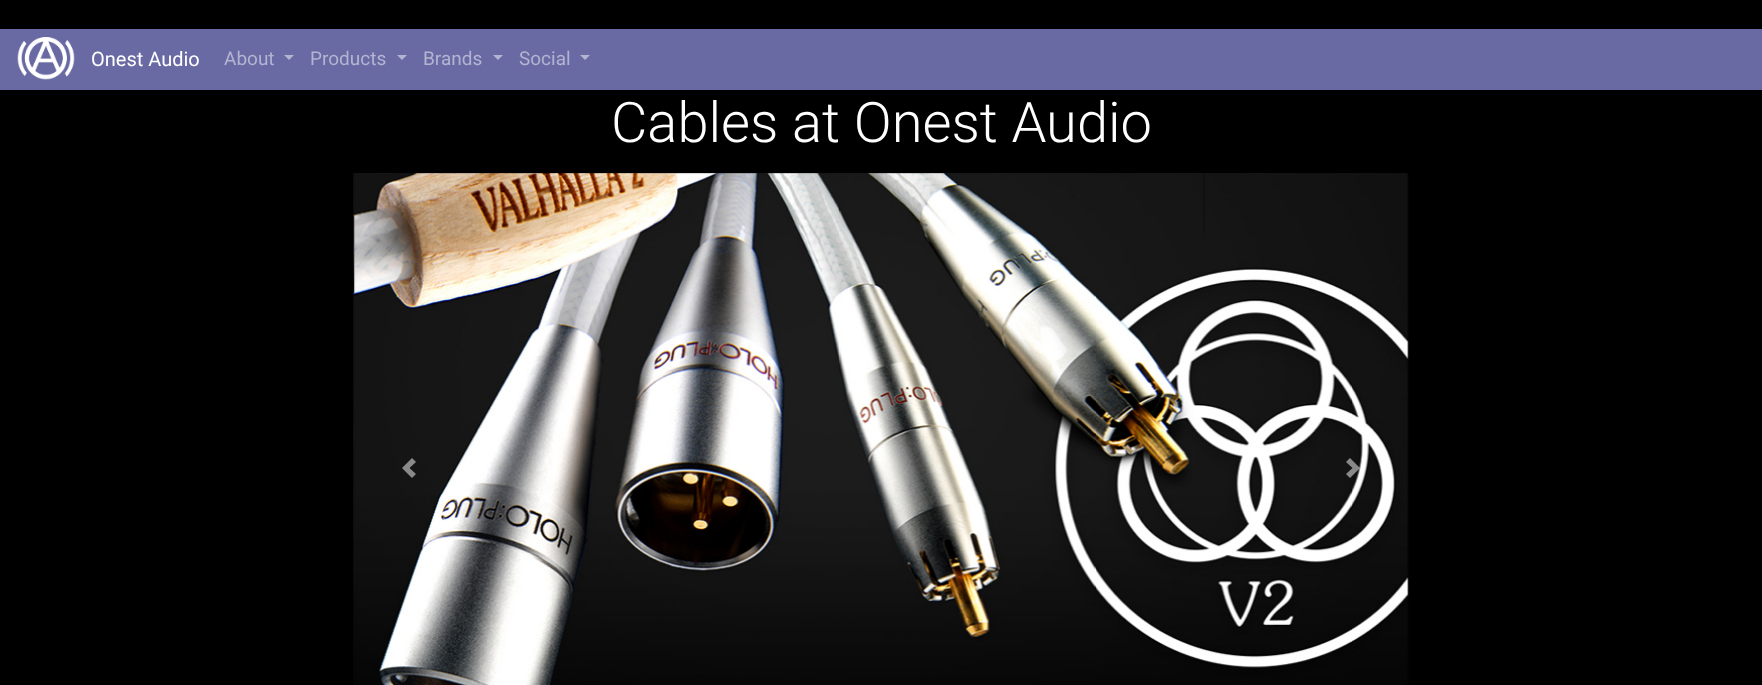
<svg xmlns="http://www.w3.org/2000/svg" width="1762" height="685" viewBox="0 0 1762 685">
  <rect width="100%" height="100%" fill="#000000"/>
  <rect x="0" y="29" width="1762" height="61" fill="#6969a4"/>
  <image x="17" y="37" width="58" height="43" href="img1.png"/>
  <text x="91" y="66" font-family="Roboto" font-size="20" fill="#ffffff">Onest Audio</text>
  <text x="224" y="65" font-family="Roboto" font-size="19" fill="#b4b4d2">About</text>
  <path d="M284 55H294L289 60Z" fill="#b4b4d2"/>
  <text x="310" y="65" font-family="Roboto" font-size="19" fill="#b4b4d2">Products</text>
  <path d="M397 55H407L402 60Z" fill="#b4b4d2"/>
  <text x="423" y="65" font-family="Roboto" font-size="19" fill="#b4b4d2">Brands</text>
  <path d="M493 55H503L498 60Z" fill="#b4b4d2"/>
  <text x="519" y="65" font-family="Roboto" font-size="19" fill="#b4b4d2">Social</text>
  <path d="M580 55H590L585 60Z" fill="#b4b4d2"/>
  <text x="611" y="142" font-family="Roboto" font-size="56" font-weight="300" fill="#ffffff">Cables at Onest Audio</text>
  <image x="353" y="173" width="1056" height="512" href="img2.png"/>
  <path d="M412 458L402 468L412 478L416 474L409.5 468L416 462Z" fill="#8a8a8a"/>
  <path d="M1350 458L1346 462L1352.5 468L1346 474L1350 478L1360 468Z" fill="#ffffff" fill-opacity="0.5"/>
</svg>
